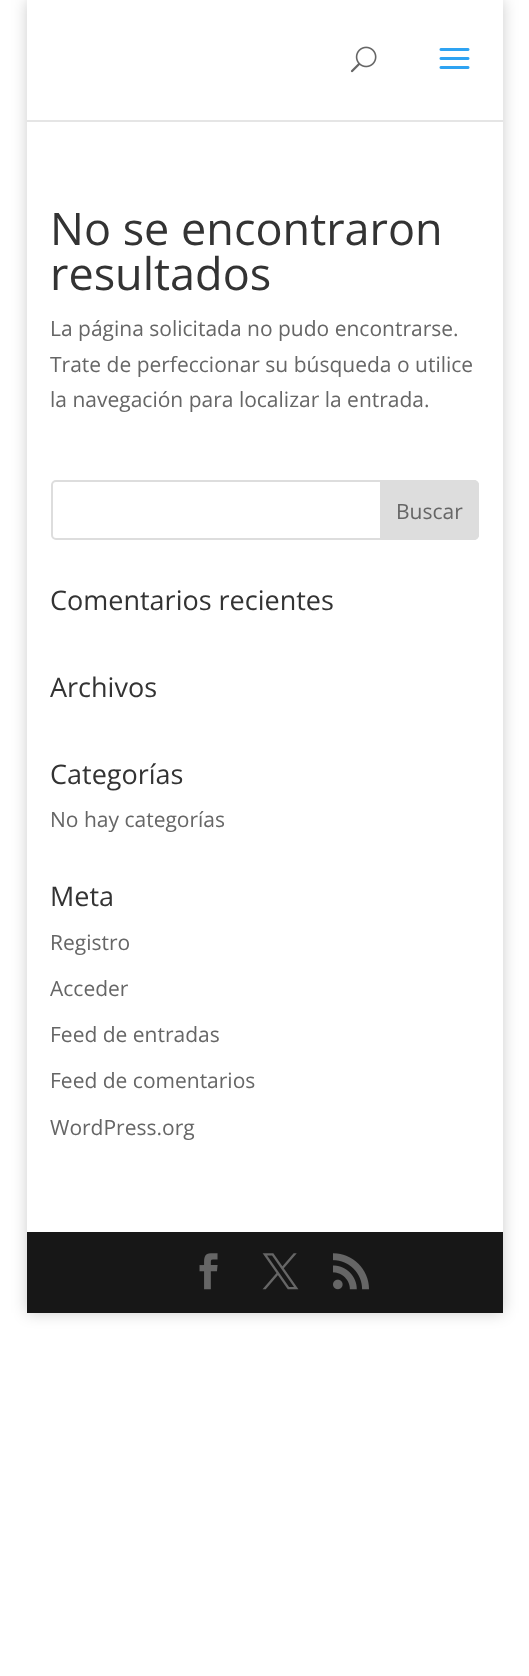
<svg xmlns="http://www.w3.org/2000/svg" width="529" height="1676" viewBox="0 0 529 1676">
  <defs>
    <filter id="blur1" x="-50%" y="-200%" width="200%" height="500%"><feGaussianBlur stdDeviation="7.5"/></filter>
  </defs>
  <rect width="100%" height="100%" fill="#ffffff"/>
  <rect x="27" y="0" width="476" height="1313" fill="#000000" fill-opacity="0.2" filter="url(#blur1)"/>
  <rect x="27" y="120" width="476" height="1112" fill="#ffffff"/>
  <path d="M27 120V122H503V2H502V120Z" fill="#000000" fill-opacity="0.1"/>
  <rect x="27" y="0" width="476" height="120" fill="#ffffff"/>
  <image x="350" y="46" width="27" height="27" href="img1.png"/>
  <image x="439" y="48" width="31" height="21" href="img2.png"/>
  <text x="50" y="245" font-family="Open Sans" font-size="45" fill="#333333">No se encontraron</text>
  <text x="50" y="290" font-family="Open Sans" font-size="45" fill="#333333">resultados</text>
  <text x="50" y="336" font-family="Open Sans" font-size="21" fill="#666666">La página solicitada no pudo encontrarse.</text>
  <text x="50" y="372" font-family="Open Sans" font-size="21" fill="#666666">Trate de perfeccionar su búsqueda o utilice</text>
  <text x="50" y="407" font-family="Open Sans" font-size="21" fill="#666666">la navegación para localizar la entrada.</text>
  <rect x="52" y="481" width="426" height="58" rx="4" fill="none" stroke="#dddddd" stroke-width="2"/>
  <path d="M381 481H474C476 481 478 483 478 485V535C478 537 476 539 474 539H381Z" fill="#dddddd" stroke="#dddddd" stroke-width="2"/>
  <text x="396" y="519" font-family="Open Sans" font-size="21" fill="#666666">Buscar</text>
  <text x="50" y="610" font-family="Open Sans" font-size="27" fill="#333333">Comentarios recientes</text>
  <text x="50" y="697" font-family="Open Sans" font-size="27" fill="#333333">Archivos</text>
  <text x="50" y="784" font-family="Open Sans" font-size="27" fill="#333333">Categorías</text>
  <text x="50" y="827" font-family="Open Sans" font-size="21" fill="#666666">No hay categorías</text>
  <text x="50" y="906" font-family="Open Sans" font-size="27" fill="#333333">Meta</text>
  <text x="50" y="950" font-family="Open Sans" font-size="21" fill="#666666">Registro</text>
  <text x="50" y="996" font-family="Open Sans" font-size="21" fill="#666666">Acceder</text>
  <text x="50" y="1042" font-family="Open Sans" font-size="21" fill="#666666">Feed de entradas</text>
  <text x="50" y="1088" font-family="Open Sans" font-size="21" fill="#666666">Feed de comentarios</text>
  <text x="50" y="1135" font-family="Open Sans" font-size="21" fill="#666666">WordPress.org</text>
  <rect x="27" y="1232" width="476" height="81" fill="#171717"/>
  <image x="199" y="1253" width="19" height="37" href="img3.png"/>
  <image x="262" y="1253" width="37" height="37" href="img4.png"/>
  <image x="333" y="1253" width="36" height="37" href="img5.png"/>
</svg>
